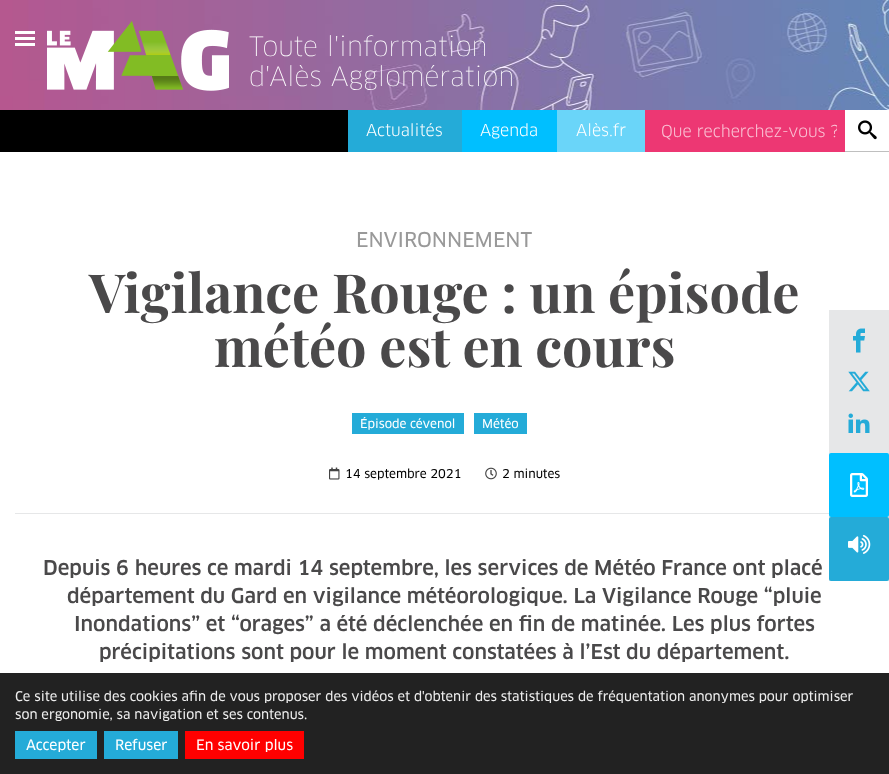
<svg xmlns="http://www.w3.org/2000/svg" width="889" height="774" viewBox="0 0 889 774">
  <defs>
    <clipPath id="clip1"><rect x="661" y="121" width="176" height="21"/></clipPath>
  </defs>
  <rect width="100%" height="100%" fill="#ffffff"/>
  <image x="0" y="0" width="889" height="110" href="img1.png"/>
  <rect x="15" y="31" width="20" height="3" fill="#ffffff"/>
  <rect x="15" y="37" width="20" height="3" fill="#ffffff"/>
  <rect x="15" y="43" width="20" height="3" fill="#ffffff"/>
  <image x="47" y="21" width="182" height="70" href="img2.png"/>
  <text x="249" y="56" font-family="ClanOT" font-size="26" font-weight="100" fill="#ffffff">Toute l'information</text>
  <text x="249" y="86" font-family="ClanOT" font-size="26" font-weight="100" fill="#ffffff">d'Alès Agglomération</text>
  <rect x="0" y="110" width="348" height="42" fill="#000000"/>
  <rect x="348" y="110" width="114" height="42" fill="#24abd8"/>
  <text x="366" y="136" font-family="'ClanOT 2'" font-size="16" fill="#ffffff">Actualités</text>
  <rect x="462" y="110" width="95" height="42" fill="#00bfff"/>
  <text x="480" y="136" font-family="'ClanOT 2'" font-size="16" fill="#ffffff">Agenda</text>
  <rect x="557" y="110" width="88" height="42" fill="#6ad5f9"/>
  <text x="576" y="136" font-family="'ClanOT 2'" font-size="16" fill="#ffffff">Alès.fr</text>
  <rect x="645" y="110" width="200" height="42" fill="#ed3773"/>
  <g clip-path="url(#clip1)">
    <text x="661" y="137" font-family="'ClanOT 2'" font-size="16" fill="#fac3d5">Que recherchez-vous ?</text>
  </g>
  <rect x="845" y="151" width="44" height="1" fill="#bfbfbf"/>
  <image x="858" y="120" width="19" height="20" href="img3.png"/>
  <text x="356" y="247" font-family="ClanOT" font-size="20" fill="#999999">ENVIRONNEMENT</text>
  <text x="89" y="313" font-family="Playfair Display" font-size="54" font-weight="bold" fill="#4a494a">Vigilance Rouge : un épisode</text>
  <text x="214" y="367" font-family="Playfair Display" font-size="54" font-weight="bold" fill="#4a494a">météo est en cours</text>
  <rect x="352" y="413" width="112" height="21" fill="#24abd8"/>
  <text x="360" y="428" font-family="ClanOT" font-size="12" fill="#ffffff">Épisode cévenol</text>
  <rect x="474" y="413" width="53" height="21" fill="#24abd8"/>
  <text x="482" y="428" font-family="ClanOT" font-size="12" fill="#ffffff">Météo</text>
  <image x="329" y="467" width="11" height="13" href="img4.png"/>
  <text x="345" y="478" font-family="ClanOT" font-size="12" fill="#000000">14 septembre 2021</text>
  <image x="485" y="467" width="12" height="13" href="img5.png"/>
  <text x="502" y="478" font-family="ClanOT" font-size="12" fill="#000000">2 minutes</text>
  <rect x="15" y="513" width="814" height="1" fill="#e6e7e8"/>
  <text x="43" y="575" font-family="ClanOT" font-size="20" font-weight="500" fill="#4a494a">Depuis 6 heures ce mardi 14 septembre, les services de Météo France ont placé</text>
  <text x="67" y="603" font-family="ClanOT" font-size="20" font-weight="500" fill="#4a494a">département du Gard en vigilance météorologique. La Vigilance Rouge “pluie</text>
  <text x="74" y="631" font-family="ClanOT" font-size="20" font-weight="500" fill="#4a494a">Inondations” et “orages” a été déclenchée en fin de matinée. Les plus fortes</text>
  <text x="99" y="659" font-family="ClanOT" font-size="20" font-weight="500" fill="#4a494a">précipitations sont pour le moment constatées à l’Est du département.</text>
  <rect x="829" y="310" width="60" height="271" fill="#e6e7e8"/>
  <image x="853" y="328" width="12" height="25" href="img6.png"/>
  <image x="848" y="371" width="22" height="21" href="img7.png"/>
  <image x="848" y="413" width="22" height="20" href="img8.png"/>
  <rect x="829" y="453" width="60" height="64" rx="2" fill="#00bfff"/>
  <image x="850" y="473" width="18" height="24" href="img9.png"/>
  <rect x="829" y="517" width="60" height="64" rx="2" fill="#24abd8"/>
  <image x="848" y="534" width="23" height="20" href="img10.png"/>
  <rect x="0" y="673" width="889" height="101" fill="#222222"/>
  <text x="15" y="701" font-family="ClanOT" font-size="13" fill="#eeeeee">Ce site utilise des cookies afin de vous proposer des vidéos et d'obtenir des statistiques de fréquentation anonymes pour optimiser</text>
  <text x="15" y="719" font-family="ClanOT" font-size="13" fill="#eeeeee">son ergonomie, sa navigation et ses contenus.</text>
  <rect x="15" y="731" width="82" height="28" fill="#24abd8"/>
  <text x="26" y="750" font-family="ClanOT" font-size="14" fill="#ffffff">Accepter</text>
  <rect x="104" y="731" width="74" height="28" fill="#24abd8"/>
  <text x="115" y="750" font-family="ClanOT" font-size="14" fill="#ffffff">Refuser</text>
  <rect x="185" y="731" width="119" height="28" fill="#ff0000"/>
  <text x="196" y="750" font-family="ClanOT" font-size="14" fill="#ffffff">En savoir plus</text>
</svg>
